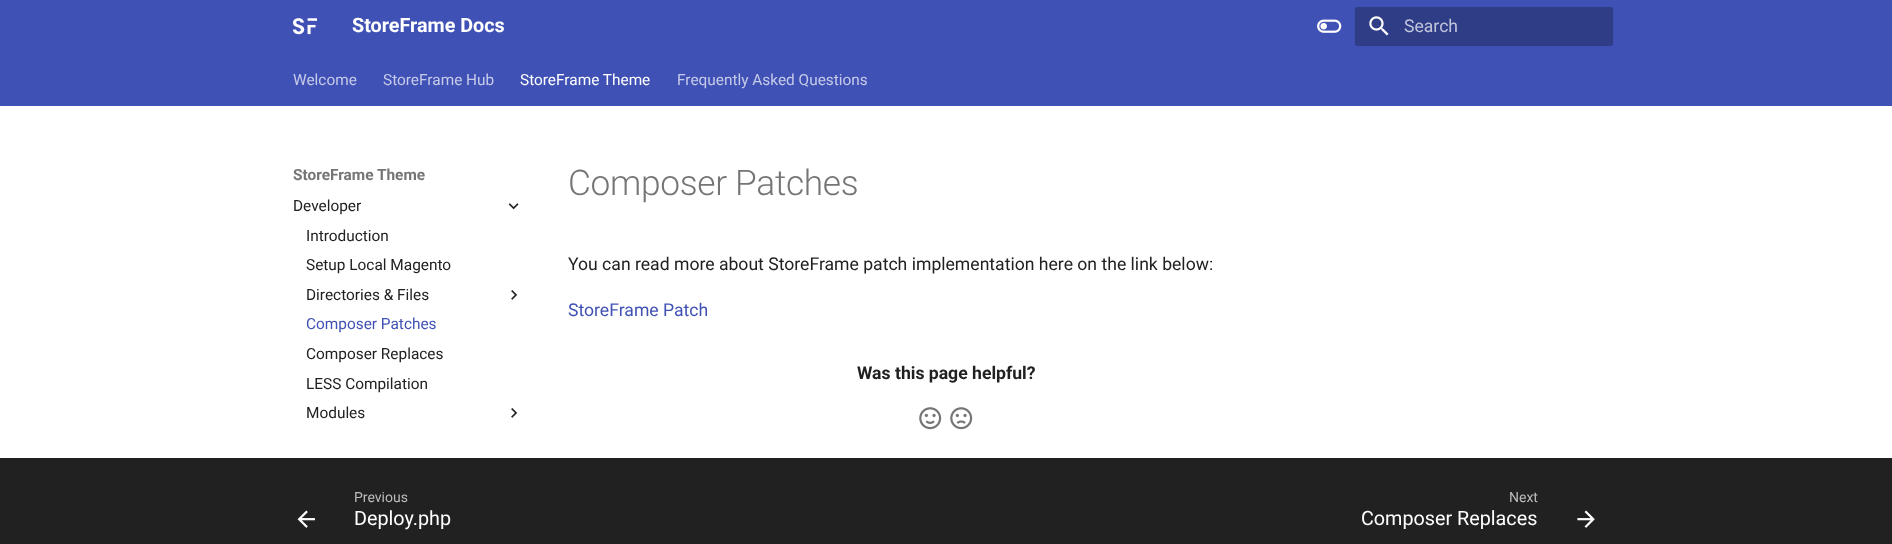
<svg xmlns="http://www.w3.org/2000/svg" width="1892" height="544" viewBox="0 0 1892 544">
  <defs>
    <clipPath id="clip1"><rect x="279" y="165" width="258" height="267"/></clipPath>
    <filter id="blur1" x="-50%" y="-200%" width="200%" height="500%"><feGaussianBlur stdDeviation="4.5"/></filter>
  </defs>
  <rect width="100%" height="100%" fill="#ffffff"/>
  <rect x="0" y="0" width="1892" height="106" fill="#4051b5"/>
  <image x="293" y="18" width="24" height="17" href="img1.png"/>
  <text x="352" y="32" font-family="Roboto" font-size="19.75" font-weight="bold" fill="#ffffff">StoreFrame Docs</text>
  <image x="1317" y="19" width="25" height="14" href="img2.png"/>
  <rect x="1355" y="7" width="258" height="39" rx="2" fill="#2f3c86"/>
  <image x="1369" y="16" width="20" height="20" href="img3.png"/>
  <text x="1404" y="32" font-family="Roboto" font-size="17.6" fill="#c1c5db">Search</text>
  <text x="293" y="85" font-family="Roboto" font-size="15.4" fill="#c6cbe9">Welcome</text>
  <text x="383" y="85" font-family="Roboto" font-size="15.4" fill="#c6cbe9">StoreFrame Hub</text>
  <text x="520" y="85" font-family="Roboto" font-size="15.4" fill="#ffffff">StoreFrame Theme</text>
  <text x="677" y="85" font-family="Roboto" font-size="15.4" fill="#c6cbe9">Frequently Asked Questions</text>
  <image x="508" y="203" width="11" height="7" href="img4.png"/>
  <g clip-path="url(#clip1)">
    <rect x="284" y="156" width="249" height="38" fill="#ffffff" filter="url(#blur1)"/>
  </g>
  <text x="293" y="180" font-family="Roboto" font-size="15.4" font-weight="bold" fill="#757575">StoreFrame Theme</text>
  <text x="293" y="211" font-family="Roboto" font-size="15.4" fill="#212121">Developer</text>
  <text x="306" y="241" font-family="Roboto" font-size="15.4" fill="#212121">Introduction</text>
  <text x="306" y="270" font-family="Roboto" font-size="15.4" fill="#212121">Setup Local Magento</text>
  <text x="306" y="300" font-family="Roboto" font-size="15.4" fill="#212121">Directories &amp; Files</text>
  <image x="511" y="290" width="7" height="10" href="img5.png"/>
  <text x="306" y="329" font-family="Roboto" font-size="15.4" fill="#4051b5">Composer Patches</text>
  <text x="306" y="359" font-family="Roboto" font-size="15.4" fill="#212121">Composer Replaces</text>
  <text x="306" y="389" font-family="Roboto" font-size="15.4" fill="#212121">LESS Compilation</text>
  <text x="306" y="418" font-family="Roboto" font-size="15.4" fill="#212121">Modules</text>
  <image x="511" y="408" width="7" height="10" href="img5.png"/>
  <text x="568" y="195" font-family="Roboto" font-size="35.25" font-weight="300" letter-spacing="-0.3" fill="#757575">Composer Patches</text>
  <text x="568" y="270" font-family="Roboto" font-size="17.6" fill="#212121">You can read more about StoreFrame patch implementation here on the link below:</text>
  <text x="568" y="316" font-family="Roboto" font-size="17.6" fill="#4051b5">StoreFrame Patch</text>
  <text x="857" y="379" font-family="Roboto" font-size="17.6" font-weight="bold" fill="#212121">Was this page helpful?</text>
  <image x="919" y="407" width="23" height="23" href="img6.png"/>
  <image x="950" y="407" width="23" height="23" href="img7.png"/>
  <rect x="0" y="458" width="1892" height="86" fill="#212121"/>
  <image x="297" y="510" width="18" height="18" href="img8.png"/>
  <text x="354" y="502" font-family="Roboto" font-size="14" fill="#bcbcbc">Previous</text>
  <text x="354" y="525" font-family="Roboto" font-size="19.75" fill="#ffffff">Deploy.php</text>
  <text x="1509" y="502" font-family="Roboto" font-size="14" fill="#bcbcbc">Next</text>
  <text x="1361" y="525" font-family="Roboto" font-size="19.75" fill="#ffffff">Composer Replaces</text>
  <image x="1577" y="510" width="18" height="18" href="img9.png"/>
</svg>
